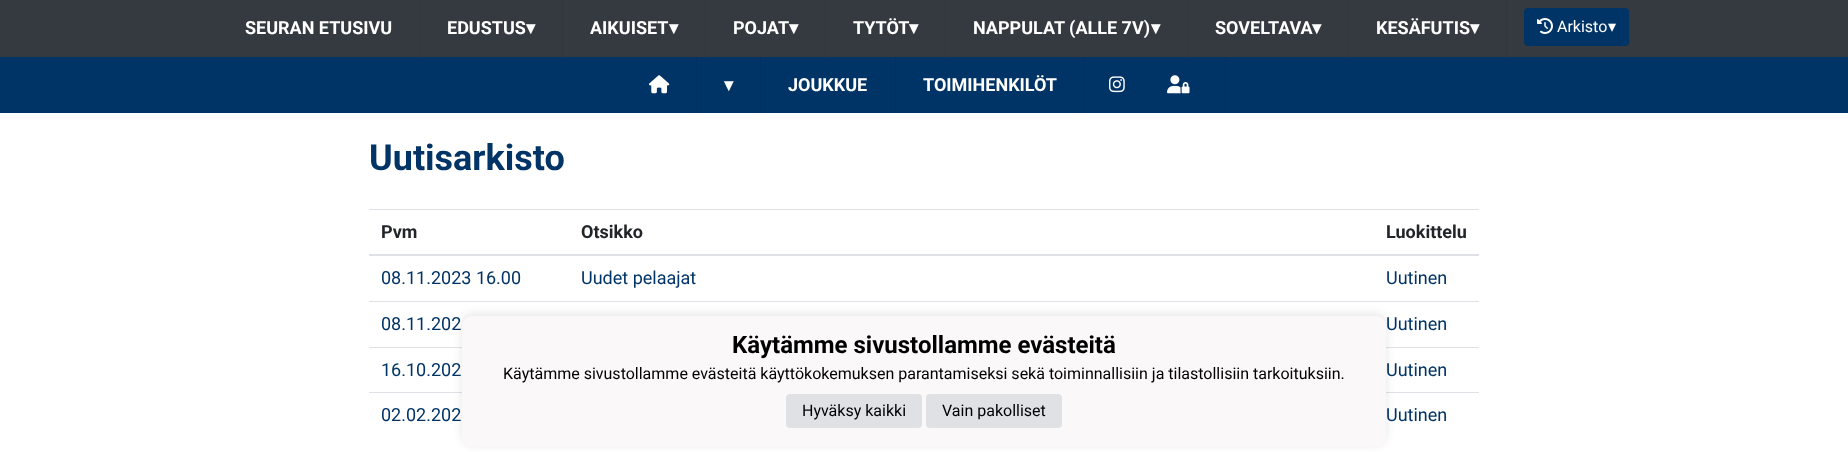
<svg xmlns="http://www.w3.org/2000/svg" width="1848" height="452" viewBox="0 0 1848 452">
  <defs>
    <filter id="blur1" x="-50%" y="-200%" width="200%" height="500%"><feGaussianBlur stdDeviation="5"/></filter>
  </defs>
  <rect width="100%" height="100%" fill="#ffffff"/>
  <rect x="0" y="0" width="1848" height="57" fill="#343a40"/>
  <rect x="419" y="0" width="1" height="57" fill="#31373d"/>
  <text x="245" y="34" font-family="Roboto" font-size="18" font-weight="bold" fill="#ffffff">SEURAN ETUSIVU</text>
  <rect x="562" y="0" width="1" height="57" fill="#31373d"/>
  <text x="447" y="34" font-family="Roboto" font-size="18" font-weight="bold" fill="#ffffff">EDUSTUS</text>
  <text x="526" y="34" font-family="DejaVu Sans" font-size="18" font-weight="bold" fill="#ffffff">▾</text>
  <rect x="705" y="0" width="1" height="57" fill="#31373d"/>
  <text x="590" y="34" font-family="Roboto" font-size="18" font-weight="bold" fill="#ffffff">AIKUISET</text>
  <text x="669" y="34" font-family="DejaVu Sans" font-size="18" font-weight="bold" fill="#ffffff">▾</text>
  <rect x="825" y="0" width="1" height="57" fill="#31373d"/>
  <text x="733" y="34" font-family="Roboto" font-size="18" font-weight="bold" fill="#ffffff">POJAT</text>
  <text x="789" y="34" font-family="DejaVu Sans" font-size="18" font-weight="bold" fill="#ffffff">▾</text>
  <rect x="945" y="0" width="1" height="57" fill="#31373d"/>
  <text x="853" y="34" font-family="Roboto" font-size="18" font-weight="bold" fill="#ffffff">TYTÖT</text>
  <text x="909" y="34" font-family="DejaVu Sans" font-size="18" font-weight="bold" fill="#ffffff">▾</text>
  <rect x="1187" y="0" width="1" height="57" fill="#31373d"/>
  <text x="973" y="34" font-family="Roboto" font-size="18" font-weight="bold" fill="#ffffff">NAPPULAT (ALLE 7V)</text>
  <text x="1151" y="34" font-family="DejaVu Sans" font-size="18" font-weight="bold" fill="#ffffff">▾</text>
  <rect x="1348" y="0" width="1" height="57" fill="#31373d"/>
  <text x="1215" y="34" font-family="Roboto" font-size="18" font-weight="bold" fill="#ffffff">SOVELTAVA</text>
  <text x="1312" y="34" font-family="DejaVu Sans" font-size="18" font-weight="bold" fill="#ffffff">▾</text>
  <rect x="1506" y="0" width="1" height="57" fill="#31373d"/>
  <text x="1376" y="34" font-family="Roboto" font-size="18" font-weight="bold" fill="#ffffff">KESÄFUTIS</text>
  <text x="1470" y="34" font-family="DejaVu Sans" font-size="18" font-weight="bold" fill="#ffffff">▾</text>
  <rect x="1629" y="8" width="1" height="43" fill="#31373d"/>
  <rect x="1524" y="8" width="105" height="38" rx="4" fill="#003366"/>
  <image x="1537" y="18" width="16" height="16" href="img1.png"/>
  <text x="1557" y="32" font-family="Roboto" font-size="16" fill="#ffffff">Arkisto</text>
  <text x="1608" y="32" font-family="DejaVu Sans" font-size="16" fill="#ffffff">▾</text>
  <rect x="0" y="57" width="1848" height="56" fill="#003366"/>
  <rect x="696" y="57" width="1" height="56" fill="#003061"/>
  <image x="649" y="75" width="21" height="19" href="img2.png"/>
  <rect x="760" y="57" width="1" height="56" fill="#003061"/>
  <text x="724" y="91" font-family="DejaVu Sans" font-size="18" font-weight="bold" fill="#ffffff">▾</text>
  <rect x="895" y="57" width="1" height="56" fill="#003061"/>
  <text x="788" y="91" font-family="Roboto" font-size="18" font-weight="bold" fill="#ffffff">JOUKKUE</text>
  <rect x="1084" y="57" width="1" height="56" fill="#003061"/>
  <text x="923" y="91" font-family="Roboto" font-size="18" font-weight="bold" fill="#ffffff">TOIMIHENKILÖT</text>
  <rect x="1225" y="57" width="1" height="56" fill="#003061"/>
  <image x="1109" y="76" width="16" height="17" href="img3.png"/>
  <image x="1167" y="75" width="23" height="19" href="img4.png"/>
  <text x="369" y="170" font-family="Roboto" font-size="36" font-weight="bold" fill="#003366">Uutisarkisto</text>
  <text x="381" y="238" font-family="Roboto" font-size="18" font-weight="bold" fill="#212529">Pvm</text>
  <text x="581" y="238" font-family="Roboto" font-size="18" font-weight="bold" fill="#212529">Otsikko</text>
  <rect x="369" y="209" width="1110" height="1" fill="#dee2e6"/>
  <rect x="369" y="254" width="1110" height="2" fill="#dee2e6"/>
  <text x="1386" y="238" font-family="Roboto" font-size="18" font-weight="bold" fill="#212529">Luokittelu</text>
  <text x="381" y="284" font-family="Roboto" font-size="18" fill="#003366">08.11.2023 16.00</text>
  <text x="581" y="284" font-family="Roboto" font-size="18" fill="#003366">Uudet pelaajat</text>
  <text x="1386" y="284" font-family="Roboto" font-size="18" fill="#003366">Uutinen</text>
  <text x="381" y="330" font-family="Roboto" font-size="18" fill="#003366">08.11.202</text>
  <rect x="369" y="301" width="1110" height="1" fill="#dee2e6"/>
  <text x="1386" y="330" font-family="Roboto" font-size="18" fill="#003366">Uutinen</text>
  <rect x="369" y="347" width="93" height="1" fill="#dee2e6"/>
  <text x="381" y="376" font-family="Roboto" font-size="18" fill="#003366">16.10.202</text>
  <rect x="1386" y="347" width="93" height="1" fill="#dee2e6"/>
  <text x="1386" y="376" font-family="Roboto" font-size="18" fill="#003366">Uutinen</text>
  <rect x="369" y="392" width="93" height="1" fill="#dee2e6"/>
  <text x="381" y="421" font-family="Roboto" font-size="18" fill="#003366">02.02.202</text>
  <rect x="1386" y="392" width="93" height="1" fill="#dee2e6"/>
  <text x="1386" y="421" font-family="Roboto" font-size="18" fill="#003366">Uutinen</text>
  <rect x="462" y="314" width="924" height="131" rx="10" fill="#000000" fill-opacity="0.1" filter="url(#blur1)"/>
  <rect x="462" y="316" width="924" height="131" rx="10" fill="#faf8f8"/>
  <text x="732" y="353" font-family="Roboto" font-size="24" font-weight="bold" fill="#000000">Käytämme sivustollamme evästeitä</text>
  <text x="503" y="379" font-family="Roboto" font-size="16" fill="#000000">Käytämme sivustollamme evästeitä käyttökokemuksen parantamiseksi sekä toiminnallisiin ja tilastollisiin tarkoituksiin.</text>
  <rect x="786" y="394" width="136" height="34" rx="4" fill="#dfe1e5"/>
  <text x="802" y="416" font-family="Roboto" font-size="16" fill="#000000">Hyväksy kaikki</text>
  <rect x="926" y="394" width="136" height="34" rx="4" fill="#dfe1e5"/>
  <text x="942" y="416" font-family="Roboto" font-size="16" fill="#000000">Vain pakolliset</text>
</svg>
